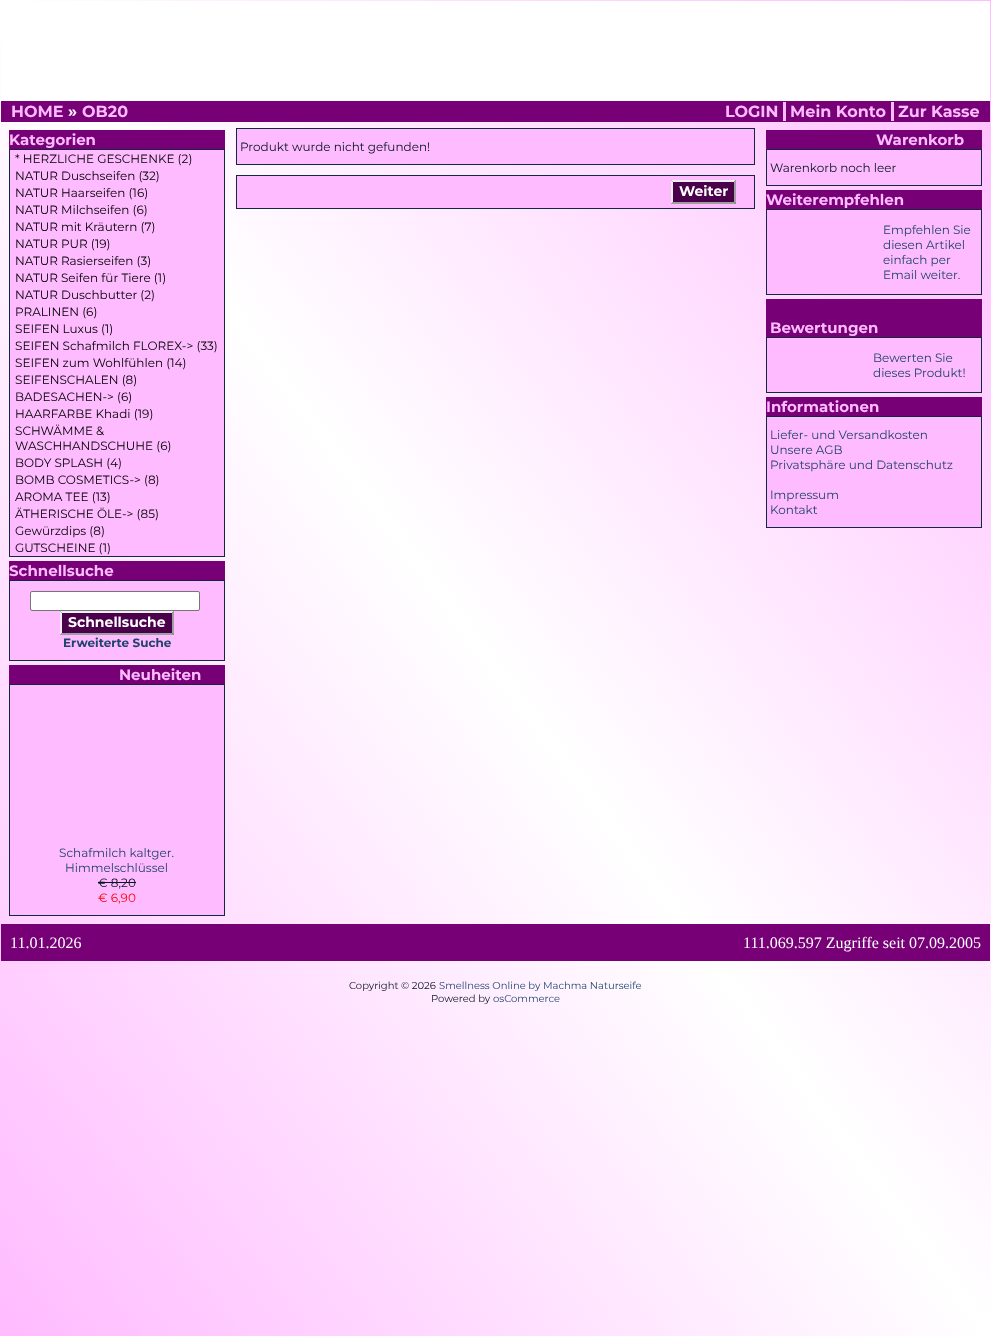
<svg xmlns="http://www.w3.org/2000/svg" width="991" height="1336" viewBox="0 0 991 1336">
  <defs>
    <linearGradient id="g1" gradientUnits="userSpaceOnUse" x1="-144" y1="1142" x2="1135" y2="194"><stop offset="0" stop-color="#ffbbff"/><stop offset="0.5" stop-color="#ffffff"/><stop offset="1" stop-color="#ffbbff"/></linearGradient>
  </defs>
  <rect width="100%" height="100%" fill="#ffffff"/>
  <rect x="0" y="0" width="991" height="1336" fill="url(#g1)"/>
  <rect x="1" y="1" width="989" height="100" fill="#ffffff"/>
  <rect x="1" y="101" width="989" height="21" fill="#770077"/>
  <text x="11" y="117" font-family="Montserrat" font-size="16" font-weight="bold" fill="#ffbbff">HOME</text>
  <text x="68" y="117" font-family="Montserrat" font-size="16" font-weight="bold" fill="#ffeeff">»</text>
  <text x="82" y="117" font-family="Montserrat" font-size="16" font-weight="bold" fill="#ffbbff">OB20</text>
  <text x="725" y="117" font-family="Montserrat" font-size="16" font-weight="bold" fill="#ffbbff">LOGIN</text>
  <rect x="783" y="102" width="3" height="19" fill="#ffbbff"/>
  <text x="790" y="117" font-family="Montserrat" font-size="16" font-weight="bold" fill="#ffbbff">Mein Konto</text>
  <rect x="891" y="102" width="3" height="19" fill="#ffbbff"/>
  <text x="898" y="117" font-family="Montserrat" font-size="16" font-weight="bold" fill="#ffbbff">Zur Kasse</text>
  <rect x="9" y="130" width="216" height="19" fill="#770077"/>
  <text x="9" y="145" font-family="Montserrat" font-size="15" font-weight="bold" fill="#ffbbff">Kategorien</text>
  <rect x="9" y="149" width="216" height="408" fill="#122841"/>
  <rect x="10" y="150" width="214" height="406" fill="#ffbbff"/>
  <text x="15" y="163" font-family="Montserrat" font-size="12" fill="#000000">* HERZLICHE GESCHENKE (2)</text>
  <text x="15" y="180" font-family="Montserrat" font-size="12" fill="#000000">NATUR Duschseifen (32)</text>
  <text x="15" y="197" font-family="Montserrat" font-size="12" fill="#000000">NATUR Haarseifen (16)</text>
  <text x="15" y="214" font-family="Montserrat" font-size="12" fill="#000000">NATUR Milchseifen (6)</text>
  <text x="15" y="231" font-family="Montserrat" font-size="12" fill="#000000">NATUR mit Kräutern (7)</text>
  <text x="15" y="248" font-family="Montserrat" font-size="12" fill="#000000">NATUR PUR (19)</text>
  <text x="15" y="265" font-family="Montserrat" font-size="12" fill="#000000">NATUR Rasierseifen (3)</text>
  <text x="15" y="282" font-family="Montserrat" font-size="12" fill="#000000">NATUR Seifen für Tiere (1)</text>
  <text x="15" y="299" font-family="Montserrat" font-size="12" fill="#000000">NATUR Duschbutter (2)</text>
  <text x="15" y="316" font-family="Montserrat" font-size="12" fill="#000000">PRALINEN (6)</text>
  <text x="15" y="333" font-family="Montserrat" font-size="12" fill="#000000">SEIFEN Luxus (1)</text>
  <text x="15" y="350" font-family="Montserrat" font-size="12" fill="#000000">SEIFEN Schafmilch FLOREX-&gt; (33)</text>
  <text x="15" y="367" font-family="Montserrat" font-size="12" fill="#000000">SEIFEN zum Wohlfühlen (14)</text>
  <text x="15" y="384" font-family="Montserrat" font-size="12" fill="#000000">SEIFENSCHALEN (8)</text>
  <text x="15" y="401" font-family="Montserrat" font-size="12" fill="#000000">BADESACHEN-&gt; (6)</text>
  <text x="15" y="418" font-family="Montserrat" font-size="12" fill="#000000">HAARFARBE Khadi (19)</text>
  <text x="15" y="435" font-family="Montserrat" font-size="12" fill="#000000">SCHWÄMME &amp;</text>
  <text x="15" y="450" font-family="Montserrat" font-size="12" fill="#000000">WASCHHANDSCHUHE (6)</text>
  <text x="15" y="467" font-family="Montserrat" font-size="12" fill="#000000">BODY SPLASH (4)</text>
  <text x="15" y="484" font-family="Montserrat" font-size="12" fill="#000000">BOMB COSMETICS-&gt; (8)</text>
  <text x="15" y="501" font-family="Montserrat" font-size="12" fill="#000000">AROMA TEE (13)</text>
  <text x="15" y="518" font-family="Montserrat" font-size="12" fill="#000000">ÄTHERISCHE ÖLE-&gt; (85)</text>
  <text x="15" y="535" font-family="Montserrat" font-size="12" fill="#000000">Gewürzdips (8)</text>
  <text x="15" y="552" font-family="Montserrat" font-size="12" fill="#000000">GUTSCHEINE (1)</text>
  <rect x="9" y="561" width="216" height="19" fill="#770077"/>
  <text x="9" y="576" font-family="Montserrat" font-size="15" font-weight="bold" fill="#ffbbff">Schnellsuche</text>
  <rect x="9" y="580" width="216" height="81" fill="#122841"/>
  <rect x="10" y="581" width="214" height="79" fill="#ffbbff"/>
  <rect x="30.5" y="591.5" width="169" height="19" rx="1.5" fill="#ffffff" stroke="#767676"/>
  <rect x="60" y="611" width="114" height="24" fill="#4b004b"/>
  <path d="M60 611H174L172 613H62Z" fill="#eeeeee"/>
  <path d="M174 611V635L172 633V613Z" fill="#9f9f9f"/>
  <path d="M174 635H60L62 633H172Z" fill="#9f9f9f"/>
  <path d="M60 635V611L62 613V633Z" fill="#eeeeee"/>
  <text x="68" y="627" font-family="Montserrat" font-size="14" font-weight="bold" fill="#ffffff">Schnellsuche</text>
  <text x="63" y="647" font-family="Montserrat" font-size="12" font-weight="bold" fill="#1f436b">Erweiterte Suche</text>
  <rect x="9" y="665" width="216" height="19" fill="#770077"/>
  <text x="119" y="680" font-family="Montserrat" font-size="15" font-weight="bold" fill="#ffbbff">Neuheiten</text>
  <rect x="9" y="684" width="216" height="232" fill="#122841"/>
  <rect x="10" y="685" width="214" height="230" fill="#ffbbff"/>
  <text x="59" y="857" font-family="Montserrat" font-size="12" fill="#1f436b">Schafmilch kaltger.</text>
  <text x="65" y="872" font-family="Montserrat" font-size="12" fill="#1f436b">Himmelschlüssel</text>
  <text x="98" y="887" font-family="Montserrat" font-size="12" fill="#0a1523">€ 8,20</text>
  <rect x="98" y="882" width="38" height="1" fill="#0a1523"/>
  <text x="98" y="902" font-family="Montserrat" font-size="12" fill="#ff0000">€ 6,90</text>
  <rect x="236" y="128" width="519" height="37" fill="#122841"/>
  <rect x="237" y="129" width="517" height="35" fill="#ffbbff"/>
  <text x="240" y="151" font-family="Montserrat" font-size="12" fill="#0a1523">Produkt wurde nicht gefunden!</text>
  <rect x="236" y="175" width="519" height="34" fill="#122841"/>
  <rect x="237" y="176" width="517" height="32" fill="#ffbbff"/>
  <rect x="671" y="180" width="65" height="24" fill="#4b004b"/>
  <path d="M671 180H736L734 182H673Z" fill="#eeeeee"/>
  <path d="M736 180V204L734 202V182Z" fill="#9f9f9f"/>
  <path d="M736 204H671L673 202H734Z" fill="#9f9f9f"/>
  <path d="M671 204V180L673 182V202Z" fill="#eeeeee"/>
  <text x="679" y="196" font-family="Montserrat" font-size="14" font-weight="bold" fill="#ffffff">Weiter</text>
  <rect x="766" y="130" width="216" height="19" fill="#770077"/>
  <text x="876" y="145" font-family="Montserrat" font-size="15" font-weight="bold" fill="#ffbbff">Warenkorb</text>
  <rect x="766" y="149" width="216" height="37" fill="#122841"/>
  <rect x="767" y="150" width="214" height="35" fill="#ffbbff"/>
  <text x="770" y="172" font-family="Montserrat" font-size="12" fill="#0a1523">Warenkorb noch leer</text>
  <rect x="766" y="190" width="216" height="19" fill="#770077"/>
  <text x="766" y="205" font-family="Montserrat" font-size="15" font-weight="bold" fill="#ffbbff">Weiterempfehlen</text>
  <rect x="766" y="209" width="216" height="86" fill="#122841"/>
  <rect x="767" y="210" width="214" height="84" fill="#ffbbff"/>
  <text x="883" y="234" font-family="Montserrat" font-size="12" fill="#1f436b">Empfehlen Sie</text>
  <text x="883" y="249" font-family="Montserrat" font-size="12" fill="#1f436b">diesen Artikel</text>
  <text x="883" y="264" font-family="Montserrat" font-size="12" fill="#1f436b">einfach per</text>
  <text x="883" y="279" font-family="Montserrat" font-size="12" fill="#1f436b">Email weiter.</text>
  <rect x="766" y="299" width="216" height="38" fill="#770077"/>
  <text x="770" y="333" font-family="Montserrat" font-size="15" font-weight="bold" fill="#ffbbff">Bewertungen</text>
  <rect x="766" y="337" width="216" height="56" fill="#122841"/>
  <rect x="767" y="338" width="214" height="54" fill="#ffbbff"/>
  <text x="873" y="362" font-family="Montserrat" font-size="12" fill="#1f436b">Bewerten Sie</text>
  <text x="873" y="377" font-family="Montserrat" font-size="12" fill="#1f436b">dieses Produkt!</text>
  <rect x="766" y="397" width="216" height="19" fill="#770077"/>
  <text x="766" y="412" font-family="Montserrat" font-size="15" font-weight="bold" fill="#ffbbff">Informationen</text>
  <rect x="766" y="416" width="216" height="112" fill="#122841"/>
  <rect x="767" y="417" width="214" height="110" fill="#ffbbff"/>
  <text x="770" y="439" font-family="Montserrat" font-size="12" fill="#1f436b">Liefer- und Versandkosten</text>
  <text x="770" y="454" font-family="Montserrat" font-size="12" fill="#1f436b">Unsere AGB</text>
  <text x="770" y="469" font-family="Montserrat" font-size="12" fill="#1f436b">Privatsphäre und Datenschutz</text>
  <text x="770" y="499" font-family="Montserrat" font-size="12" fill="#1f436b">Impressum</text>
  <text x="770" y="514" font-family="Montserrat" font-size="12" fill="#1f436b">Kontakt</text>
  <rect x="1" y="924" width="989" height="37" fill="#770077"/>
  <text x="10" y="948" font-family="Liberation Serif" font-size="16" fill="#ffffff">11.01.2026</text>
  <text x="743" y="948" font-family="Liberation Serif" font-size="16" fill="#ffffff">111.069.597 Zugriffe seit 07.09.2005</text>
  <text x="349" y="989" font-family="Montserrat" font-size="10" fill="#0a1523">Copyright © 2026</text>
  <text x="439" y="989" font-family="Montserrat" font-size="10" fill="#1f436b">Smellness Online by Machma Naturseife</text>
  <text x="431" y="1002" font-family="Montserrat" font-size="10" fill="#0a1523">Powered by</text>
  <text x="493" y="1002" font-family="Montserrat" font-size="10" fill="#1f436b">osCommerce</text>
</svg>
